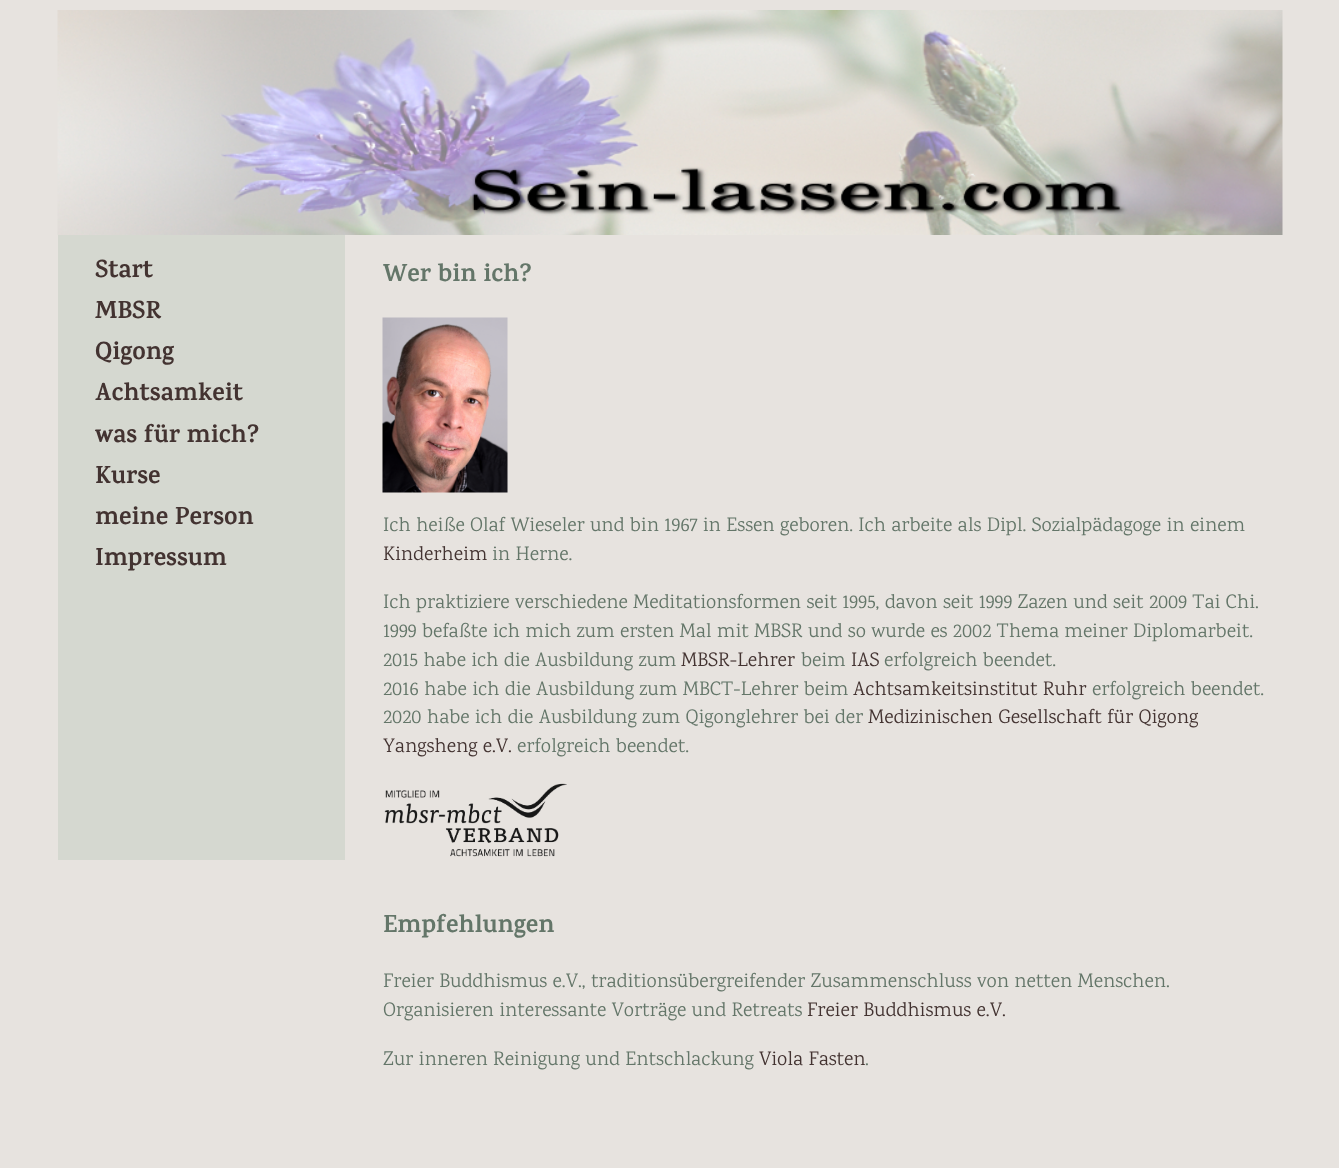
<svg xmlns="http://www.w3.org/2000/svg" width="1339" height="1168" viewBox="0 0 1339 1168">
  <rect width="100%" height="100%" fill="#e7e3df"/>
  <image x="57" y="10" width="1226" height="225" href="img1.png"/>
  <rect x="58" y="235" width="287" height="625" fill="#d5d8d0"/>
  <text x="95" y="277" font-family="Karma" font-size="25" font-weight="bold" fill="#433331">Start</text>
  <text x="95" y="318" font-family="Karma" font-size="25" font-weight="bold" fill="#433331">MBSR</text>
  <text x="95" y="359" font-family="Karma" font-size="25" font-weight="bold" fill="#433331">Qigong</text>
  <text x="95" y="400" font-family="Karma" font-size="25" font-weight="bold" fill="#433331">Achtsamkeit</text>
  <text x="95" y="442" font-family="Karma" font-size="25" font-weight="bold" fill="#433331">was für mich?</text>
  <text x="95" y="483" font-family="Karma" font-size="25" font-weight="bold" fill="#433331">Kurse</text>
  <text x="95" y="524" font-family="Karma" font-size="25" font-weight="bold" fill="#433331">meine Person</text>
  <text x="95" y="565" font-family="Karma" font-size="25" font-weight="bold" fill="#433331">Impressum</text>
  <text x="383" y="281" font-family="Karma" font-size="25" font-weight="bold" fill="#647669">Wer bin ich?</text>
  <image x="382" y="317" width="126" height="176" href="img2.png"/>
  <text x="383" y="531" font-family="Karma" font-size="20" fill="#647669">Ich heiße Olaf Wieseler und bin 1967 in Essen geboren. Ich arbeite als Dipl. Sozialpädagoge in einem</text>
  <text x="383" y="560" font-family="Karma" font-size="20" fill="#433331">Kinderheim</text>
  <text x="492" y="560" font-family="Karma" font-size="20" fill="#647669">in Herne.</text>
  <text x="383" y="608" font-family="Karma" font-size="20" fill="#647669">Ich praktiziere verschiedene Meditationsformen seit 1995, davon seit 1999 Zazen und seit 2009 Tai Chi.</text>
  <text x="383" y="637" font-family="Karma" font-size="20" fill="#647669">1999 befaßte ich mich zum ersten Mal mit MBSR und so wurde es 2002 Thema meiner Diplomarbeit.</text>
  <text x="383" y="666" font-family="Karma" font-size="20" fill="#647669">2015 habe ich die Ausbildung zum</text>
  <text x="681" y="666" font-family="Karma" font-size="20" fill="#433331">MBSR-Lehrer</text>
  <text x="801" y="666" font-family="Karma" font-size="20" fill="#647669">beim</text>
  <text x="851" y="666" font-family="Karma" font-size="20" fill="#433331">IAS</text>
  <text x="884" y="666" font-family="Karma" font-size="20" fill="#647669">erfolgreich beendet.</text>
  <text x="383" y="695" font-family="Karma" font-size="20" fill="#647669">2016 habe ich die Ausbildung zum MBCT-Lehrer beim</text>
  <text x="853" y="695" font-family="Karma" font-size="20" fill="#433331">Achtsamkeitsinstitut Ruhr</text>
  <text x="1092" y="695" font-family="Karma" font-size="20" fill="#647669">erfolgreich beendet.</text>
  <text x="383" y="723" font-family="Karma" font-size="20" fill="#647669">2020 habe ich die Ausbildung zum Qigonglehrer bei der</text>
  <text x="868" y="723" font-family="Karma" font-size="20" fill="#433331">Medizinischen Gesellschaft für Qigong</text>
  <text x="383" y="752" font-family="Karma" font-size="20" fill="#433331">Yangsheng e.V.</text>
  <text x="517" y="752" font-family="Karma" font-size="20" fill="#647669">erfolgreich beendet.</text>
  <image x="384" y="783" width="183" height="74" href="img3.png"/>
  <text x="383" y="932" font-family="Karma" font-size="25" font-weight="bold" fill="#647669">Empfehlungen</text>
  <text x="383" y="987" font-family="Karma" font-size="20" fill="#647669">Freier Buddhismus e.V., traditionsübergreifender Zusammenschluss von netten Menschen.</text>
  <text x="383" y="1016" font-family="Karma" font-size="20" fill="#647669">Organisieren interessante Vorträge und Retreats</text>
  <text x="807" y="1016" font-family="Karma" font-size="20" fill="#433331">Freier Buddhismus e.V.</text>
  <text x="383" y="1065" font-family="Karma" font-size="20" fill="#647669">Zur inneren Reinigung und Entschlackung</text>
  <text x="759" y="1065" font-family="Karma" font-size="20" fill="#433331">Viola Fasten</text>
  <text x="865" y="1065" font-family="Karma" font-size="20" fill="#647669">.</text>
</svg>
